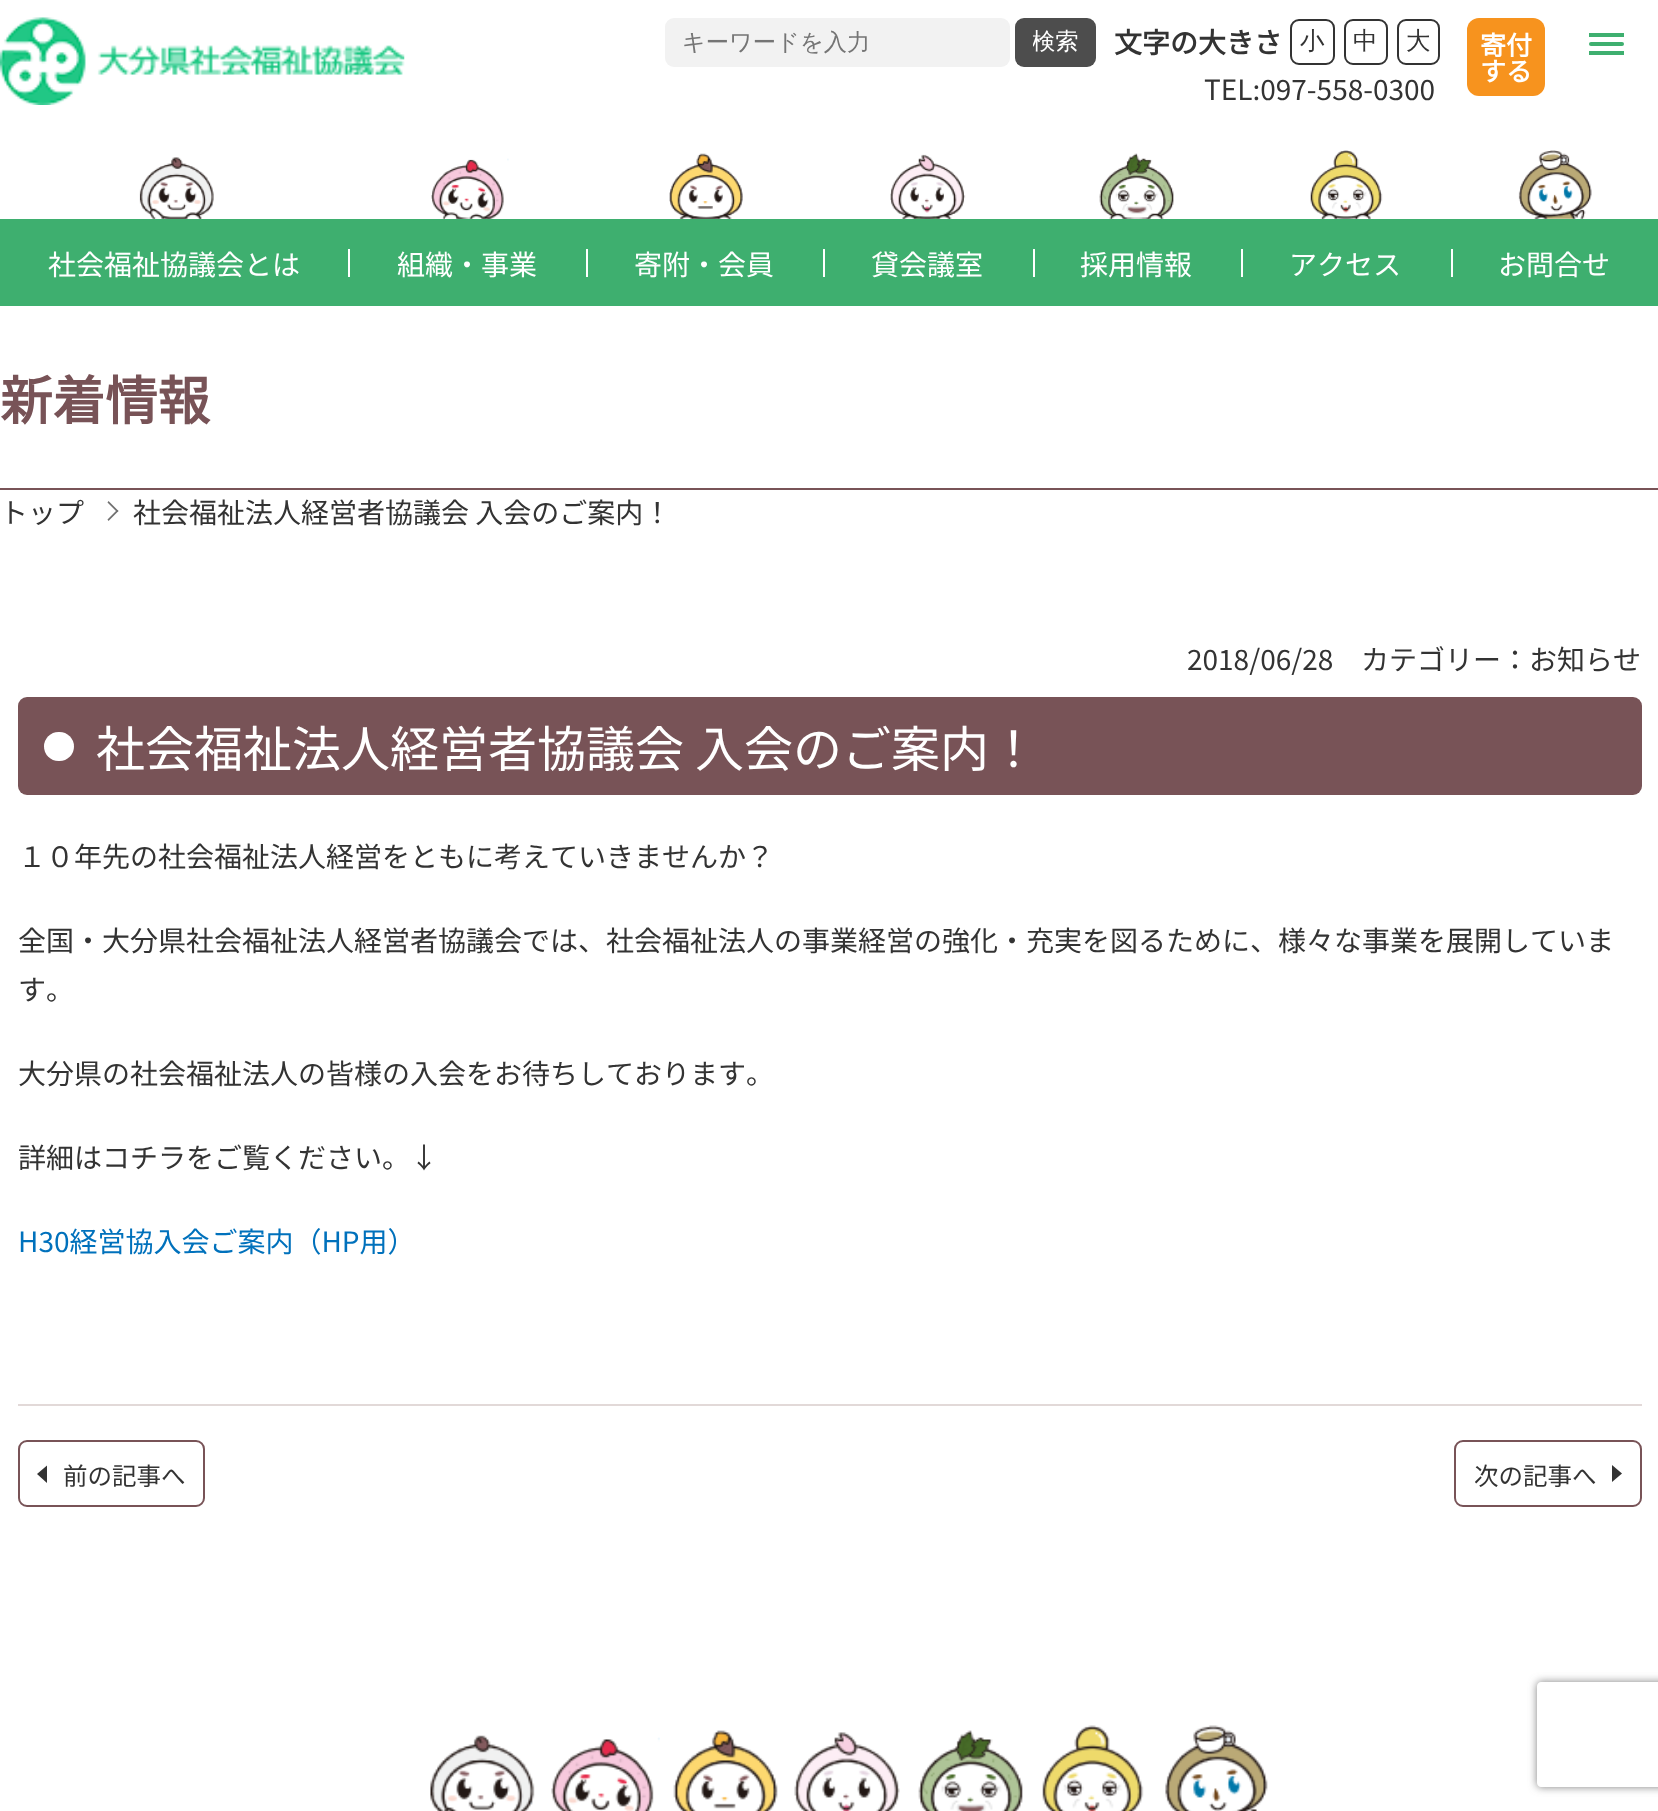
<svg xmlns="http://www.w3.org/2000/svg" width="1658" height="1811" viewBox="0 0 1658 1811">
  <style>*{font-kerning:none!important;font-variant-ligatures:none!important}</style>
  <defs>
    <clipPath id="clip1"><rect x="1033" y="26" width="45" height="32"/></clipPath>
    <clipPath id="clip2"><path d="M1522 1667H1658V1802H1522ZM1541 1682H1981C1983 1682 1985 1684 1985 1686V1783C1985 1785 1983 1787 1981 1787H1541C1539 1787 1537 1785 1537 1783V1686C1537 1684 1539 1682 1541 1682Z" clip-rule="evenodd"/></clipPath>
    <filter id="blur1" x="-50%" y="-200%" width="200%" height="500%"><feGaussianBlur stdDeviation="4.5"/></filter>
  </defs>
  <rect width="100%" height="100%" fill="#ffffff"/>
  <image x="0" y="17" width="405" height="88" href="img1.png"/>
  <rect x="665" y="18" width="345" height="49" rx="9" fill="#f2f2f2"/>
  <text x="682" y="50" font-family="WenQuanYi Zen Hei" font-size="23.25" font-weight="500" fill="#757575">キーワードを入力</text>
  <rect x="1015" y="18" width="81" height="49" rx="9" fill="#4d4d4d"/>
  <g clip-path="url(#clip1)">
    <text x="1032" y="49" font-family="WenQuanYi Zen Hei" font-size="23.25" font-weight="500" fill="#ffffff">検索</text>
  </g>
  <text x="1114" y="53" font-family="Noto Sans JP" font-size="28" font-weight="bold" fill="#333333">文字の大きさ</text>
  <rect x="1291" y="20" width="43" height="44" rx="8" fill="none" stroke="#333333" stroke-width="2"/>
  <text x="1300" y="49" font-family="WenQuanYi Zen Hei" font-size="24.5" font-weight="500" fill="#333333">小</text>
  <rect x="1345" y="20" width="42" height="44" rx="8" fill="none" stroke="#333333" stroke-width="2"/>
  <text x="1353" y="49" font-family="WenQuanYi Zen Hei" font-size="24.5" font-weight="500" fill="#333333">中</text>
  <rect x="1398" y="20" width="41" height="44" rx="8" fill="none" stroke="#333333" stroke-width="2"/>
  <text x="1406" y="49" font-family="WenQuanYi Zen Hei" font-size="24.5" font-weight="500" fill="#333333">大</text>
  <text x="1204" y="100" font-family="Noto Sans JP" font-size="28" font-weight="100" fill="#333333">TEL:097-558-0300</text>
  <rect x="1467" y="18" width="78" height="78" rx="12" fill="#f7931e"/>
  <text x="1480" y="55" font-family="Noto Sans JP" font-size="26" font-weight="bold" fill="#ffffff">寄付</text>
  <text x="1480" y="81" font-family="Noto Sans JP" font-size="26" font-weight="bold" fill="#ffffff">する</text>
  <rect x="1589" y="33" width="35" height="4" fill="#3eaf6f"/>
  <rect x="1589" y="51" width="35" height="4" fill="#3eaf6f"/>
  <rect x="1589" y="42" width="35" height="4" rx="2" fill="#3eaf6f"/>
  <rect x="0" y="219" width="1658" height="87" fill="#3eaf6f"/>
  <image x="139" y="157" width="75" height="62" href="img2.png"/>
  <text x="48" y="275" font-family="Noto Sans JP" font-size="28" font-weight="100" fill="#ffffff">社会福祉協議会とは</text>
  <rect x="348" y="249" width="2" height="28" fill="#ffffff"/>
  <image x="431" y="158" width="78" height="61" href="img3.png"/>
  <text x="397" y="275" font-family="Noto Sans JP" font-size="28" font-weight="100" fill="#ffffff">組織・事業</text>
  <rect x="586" y="249" width="2" height="28" fill="#ffffff"/>
  <image x="669" y="153" width="74" height="66" href="img4.png"/>
  <text x="634" y="275" font-family="Noto Sans JP" font-size="28" font-weight="100" fill="#ffffff">寄附・会員</text>
  <rect x="823" y="249" width="2" height="28" fill="#ffffff"/>
  <image x="890" y="154" width="76" height="65" href="img5.png"/>
  <text x="871" y="275" font-family="Noto Sans JP" font-size="28" font-weight="100" fill="#ffffff">貸会議室</text>
  <rect x="1033" y="249" width="2" height="28" fill="#ffffff"/>
  <image x="1099" y="153" width="75" height="66" href="img6.png"/>
  <text x="1080" y="275" font-family="Noto Sans JP" font-size="28" font-weight="100" fill="#ffffff">採用情報</text>
  <rect x="1241" y="249" width="2" height="28" fill="#ffffff"/>
  <image x="1310" y="150" width="73" height="69" href="img7.png"/>
  <text x="1289" y="275" font-family="Noto Sans JP" font-size="28" font-weight="100" fill="#ffffff">アクセス</text>
  <rect x="1451" y="249" width="2" height="28" fill="#ffffff"/>
  <image x="1518" y="150" width="74" height="69" href="img8.png"/>
  <text x="1498" y="275" font-family="Noto Sans JP" font-size="28" font-weight="100" fill="#ffffff">お問合せ</text>
  <rect x="0" y="488" width="1658" height="2" fill="#785357"/>
  <text x="0" y="420" font-family="Noto Sans JP" font-size="52.5" font-weight="bold" fill="#785357">新着情報</text>
  <text x="0" y="523" font-family="Noto Sans JP" font-size="28" font-weight="100" fill="#333333">トップ</text>
  <path d="M107.5 502.5L108.5 501L118.5 511L117 512Z" fill="#707070"/>
  <path d="M107.5 519.5L117 510L118.5 511L108.5 521Z" fill="#707070"/>
  <text x="133" y="523" font-family="Noto Sans JP" font-size="28" font-weight="100" fill="#333333">社会福祉法人経営者協議会 入会のご案内！</text>
  <text x="1187" y="670" font-family="Noto Sans JP" font-size="28" font-weight="100" fill="#333333">2018/06/28</text>
  <text x="1361" y="670" font-family="Noto Sans JP" font-size="28" font-weight="100" fill="#333333">カテゴリー：お知らせ</text>
  <rect x="18" y="697" width="1624" height="98" rx="9" fill="#785357"/>
  <rect x="44" y="732" width="30" height="29" rx="14.5" fill="#ffffff"/>
  <text x="96" y="767" font-family="Noto Sans JP" font-size="49" font-weight="100" fill="#ffffff">社会福祉法人経営者協議会 入会のご案内！</text>
  <rect x="18" y="1404" width="1624" height="2" fill="#e2d9d8"/>
  <text x="18" y="867" font-family="Noto Sans JP" font-size="28" font-weight="100" fill="#333333">１０年先の社会福祉法人経営をともに考えていきませんか？</text>
  <text x="18" y="951" font-family="Noto Sans JP" font-size="28" font-weight="100" fill="#333333">全国・大分県社会福祉法人経営者協議会では、社会福祉法人の事業経営の強化・充実を図るために、様々な事業を展開していま</text>
  <text x="18" y="1000" font-family="Noto Sans JP" font-size="28" font-weight="100" fill="#333333">す。</text>
  <text x="18" y="1084" font-family="Noto Sans JP" font-size="28" font-weight="100" fill="#333333">大分県の社会福祉法人の皆様の入会をお待ちしております。</text>
  <text x="18" y="1168" font-family="Noto Sans JP" font-size="28" font-weight="100" fill="#333333">詳細はコチラをご覧ください。↓</text>
  <text x="18" y="1252" font-family="Noto Sans JP" font-size="28" font-weight="100" fill="#0071bc">H30経営協入会ご案内（HP用）</text>
  <rect x="19" y="1441" width="185" height="65" rx="8" fill="none" stroke="#785357" stroke-width="2"/>
  <path d="M47 1465.5V1483L37 1474Z" fill="#333333"/>
  <text x="63" y="1485" font-family="Noto Sans JP" font-size="24.5" font-weight="100" fill="#333333">前の記事へ</text>
  <rect x="1455" y="1441" width="186" height="65" rx="8" fill="none" stroke="#785357" stroke-width="2"/>
  <text x="1474" y="1485" font-family="Noto Sans JP" font-size="24.5" font-weight="100" fill="#333333">次の記事へ</text>
  <path d="M1612 1482V1465L1622 1473.5Z" fill="#333333"/>
  <image x="430" y="1735" width="105" height="76" href="img9.png"/>
  <image x="551" y="1737" width="109" height="74" href="img10.png"/>
  <image x="673" y="1730" width="105" height="81" href="img11.png"/>
  <image x="794" y="1732" width="106" height="79" href="img12.png"/>
  <image x="918" y="1730" width="105" height="81" href="img13.png"/>
  <image x="1042" y="1725" width="102" height="86" href="img14.png"/>
  <image x="1165" y="1725" width="103" height="86" href="img15.png"/>
  <g clip-path="url(#clip2)">
    <rect x="1537" y="1682" width="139" height="105" rx="4" fill="#808080" filter="url(#blur1)"/>
  </g>
</svg>
